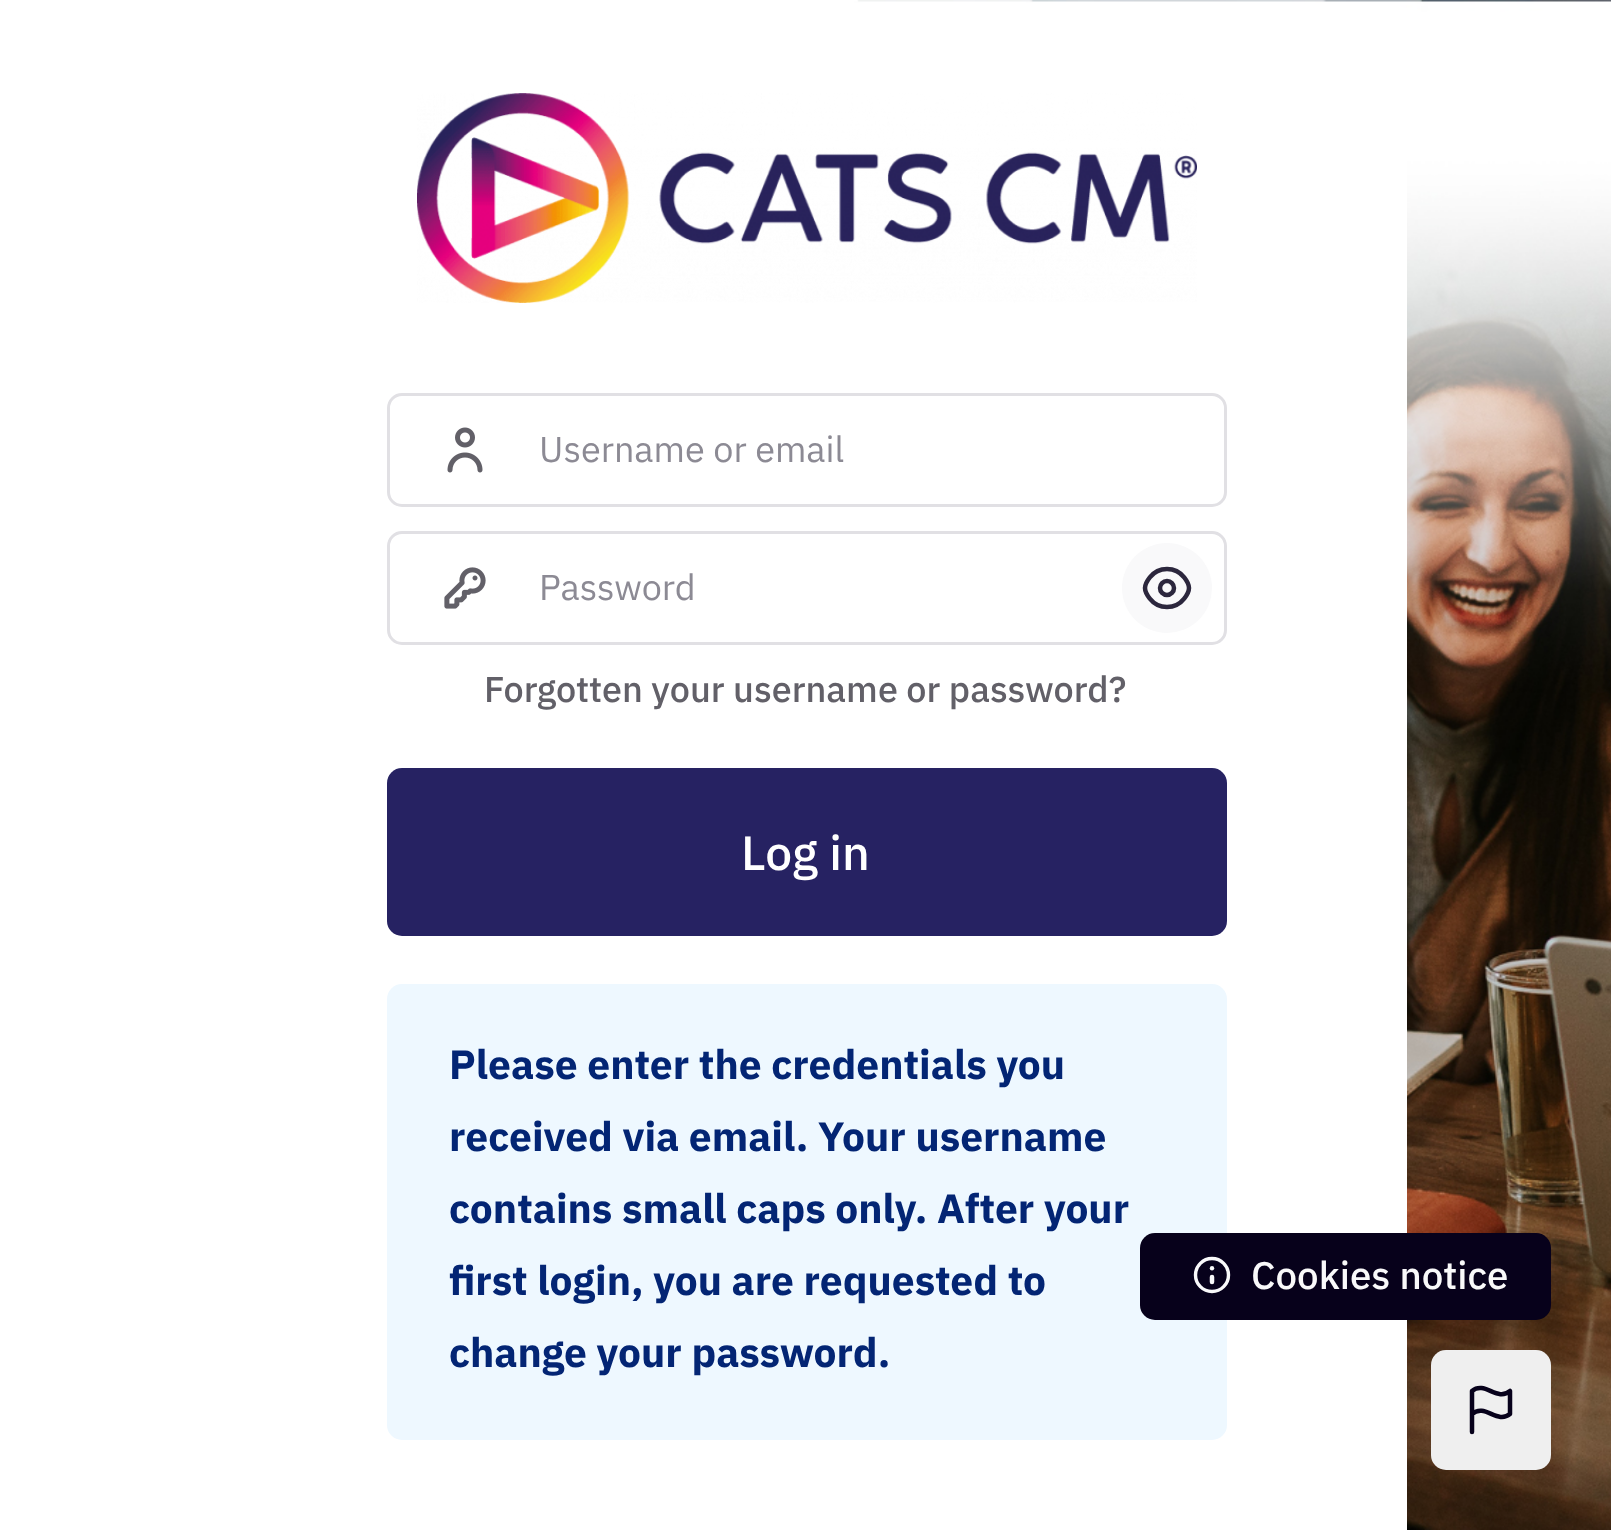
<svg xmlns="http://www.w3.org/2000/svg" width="1611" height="1530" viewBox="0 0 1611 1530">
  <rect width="100%" height="100%" fill="#ffffff"/>
  <image x="0" y="0" width="1611" height="1530" href="img1.png"/>
  <rect x="207" y="3" width="1200" height="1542" rx="15" fill="#ffffff"/>
  <image x="417" y="93" width="780" height="210" href="img2.png"/>
  <rect x="388.5" y="394.5" width="837" height="111" rx="13.5" fill="none" stroke="#e1e0e4" stroke-width="3"/>
  <image x="447" y="427" width="36" height="46" href="img3.png"/>
  <text x="539" y="462" font-family="IBM Plex Sans" font-size="36" fill="#8c8a94">Username or email</text>
  <rect x="388.5" y="532.5" width="837" height="111" rx="13.5" fill="none" stroke="#e1e0e4" stroke-width="3"/>
  <image x="444" y="567" width="42" height="42" href="img4.png"/>
  <text x="539" y="600" font-family="IBM Plex Sans" font-size="36" fill="#8c8a94">Password</text>
  <circle cx="1167" cy="588" r="45" fill="#f9f9fa"/>
  <path d="M1189 588C1189 591 1183.5 607 1167 607C1150.5 607 1145 591 1145 588C1145 585 1150.5 569 1167 569C1183.5 569 1189 585 1189 588Z" fill="none" stroke="#2c273d" stroke-width="4.5" stroke-linecap="round" stroke-linejoin="round"/>
  <circle cx="1167" cy="588" r="7" fill="none" stroke="#2c273d" stroke-width="4.5"/>
  <text x="484" y="702" font-family="IBM Plex Sans" font-size="36" font-weight="500" fill="#626068">Forgotten your username or password?</text>
  <rect x="387" y="768" width="840" height="168" rx="15" fill="#262262"/>
  <text x="741" y="870" font-family="IBM Plex Sans" font-size="48" font-weight="500" fill="#ffffff">Log in</text>
  <rect x="387" y="984" width="840" height="456" rx="15" fill="#eef8ff"/>
  <text x="449" y="1079" font-family="IBM Plex Sans" font-size="40.75" font-weight="bold" fill="#032574">Please enter the credentials you</text>
  <text x="449" y="1151" font-family="IBM Plex Sans" font-size="40.75" font-weight="bold" fill="#032574">received via email. Your username</text>
  <text x="449" y="1223" font-family="IBM Plex Sans" font-size="40.75" font-weight="bold" fill="#032574">contains small caps only. After your</text>
  <text x="449" y="1295" font-family="IBM Plex Sans" font-size="40.75" font-weight="bold" fill="#032574">first login, you are requested to</text>
  <text x="449" y="1367" font-family="IBM Plex Sans" font-size="40.75" font-weight="bold" fill="#032574">change your password.</text>
  <rect x="1140" y="1233" width="411" height="87" rx="15" fill="#07011b"/>
  <path d="M1212 1277V1282" fill="none" stroke="#f9f9fa" stroke-width="4.5" stroke-linecap="round" stroke-linejoin="round"/>
  <circle cx="1212" cy="1268.2" r="2.2" fill="#f9f9fa"/>
  <circle cx="1212" cy="1275" r="16.5" fill="none" stroke="#f9f9fa" stroke-width="3.4"/>
  <text x="1251" y="1289" font-family="IBM Plex Sans" font-size="38.5" font-weight="500" fill="#f9f9fa">Cookies notice</text>
  <rect x="1431" y="1350" width="120" height="120" rx="15" fill="#efefef"/>
  <path d="M1472 1432V1414M1472 1414V1391C1485 1380.5 1497 1402 1510 1391V1414C1497 1424.5 1485 1403 1472 1414Z" fill="none" stroke="#07011b" stroke-width="4.5" stroke-linecap="round" stroke-linejoin="round"/>
</svg>
